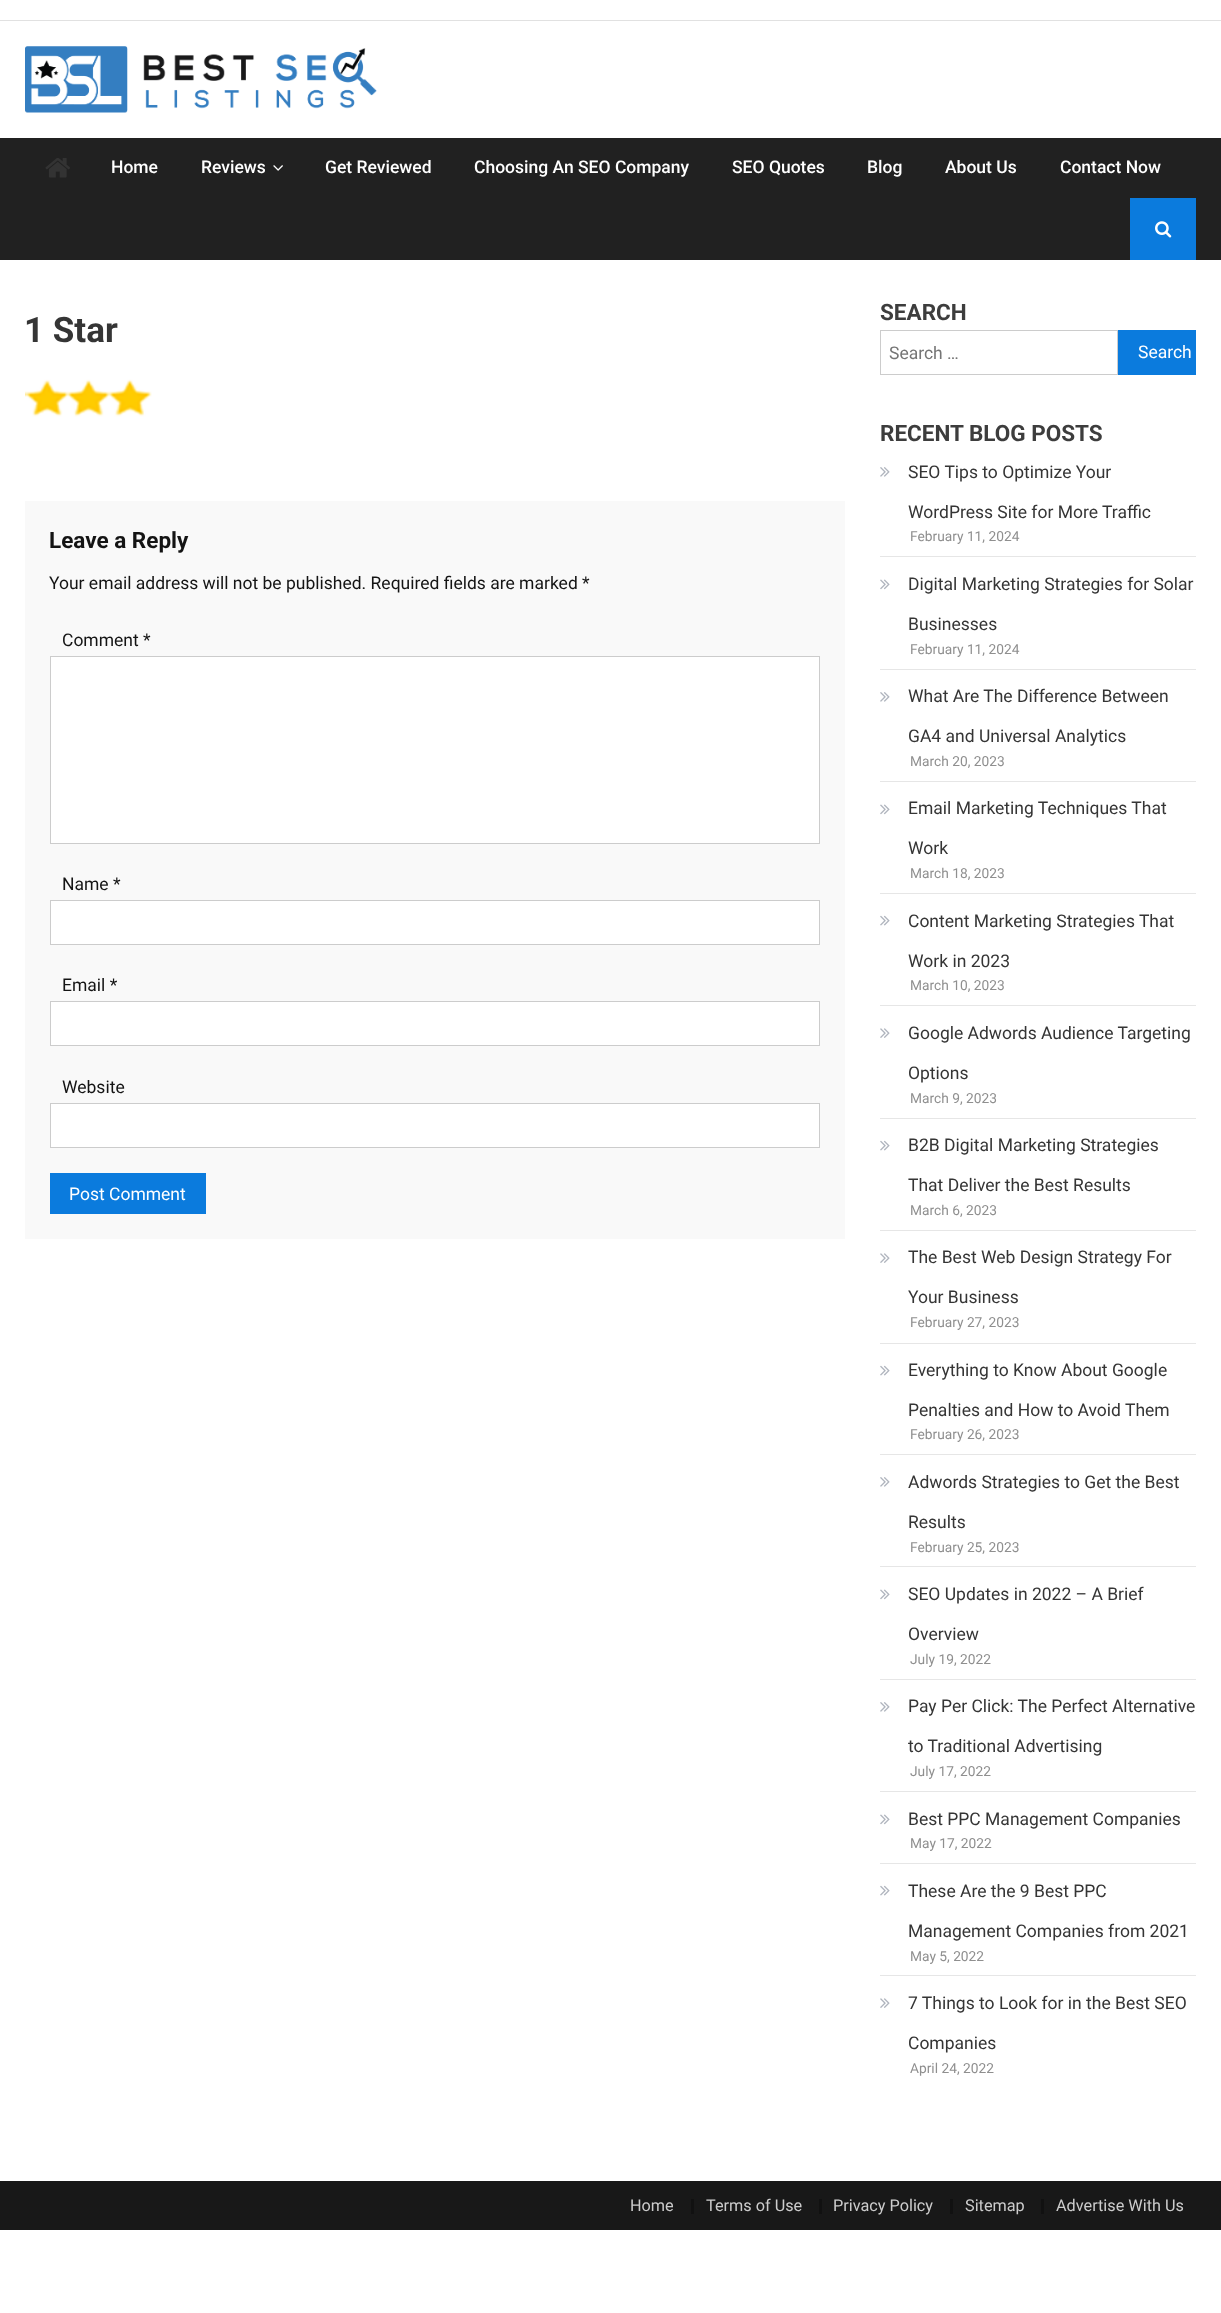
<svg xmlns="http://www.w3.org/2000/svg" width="1221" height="2313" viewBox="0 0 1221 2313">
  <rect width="100%" height="100%" fill="#ffffff"/>
  <rect x="0" y="20" width="1221" height="1" fill="#e1e1e1"/>
  <image x="25" y="46" width="352" height="67" href="img1.png"/>
  <rect x="0" y="138" width="1221" height="122" fill="#212121"/>
  <image x="45" y="158" width="25" height="20" href="img2.png"/>
  <text x="111" y="173" font-family="Roboto" font-size="17.5" font-weight="500" fill="#ffffff">Home</text>
  <text x="201" y="173" font-family="Roboto" font-size="17.5" font-weight="500" fill="#ffffff">Reviews</text>
  <image x="273" y="165" width="10" height="6" href="img3.png"/>
  <text x="325" y="173" font-family="Roboto" font-size="17.5" font-weight="500" fill="#ffffff">Get Reviewed</text>
  <text x="474" y="173" font-family="Roboto" font-size="17.5" font-weight="500" fill="#ffffff">Choosing An SEO Company</text>
  <text x="732" y="173" font-family="Roboto" font-size="17.5" font-weight="500" fill="#ffffff">SEO Quotes</text>
  <text x="867" y="173" font-family="Roboto" font-size="17.5" font-weight="500" fill="#ffffff">Blog</text>
  <text x="945" y="173" font-family="Roboto" font-size="17.5" font-weight="500" fill="#ffffff">About Us</text>
  <text x="1060" y="173" font-family="Roboto" font-size="17.5" font-weight="500" fill="#ffffff">Contact Now</text>
  <rect x="1130" y="198" width="66" height="62" fill="#0b7bdd"/>
  <image x="1155" y="221" width="17" height="17" href="img4.png"/>
  <text x="24" y="342" font-family="Roboto" font-size="35" font-weight="bold" fill="#353535">1 Star</text>
  <image x="25" y="379" width="127" height="38" href="img5.png"/>
  <rect x="25" y="501" width="820" height="738" fill="#f9f9f9"/>
  <text x="49" y="548" font-family="Roboto" font-size="22.5" font-weight="bold" fill="#141414">Leave a Reply</text>
  <text x="49" y="589" font-family="Roboto" font-size="17.5" fill="#141414">Your email address will not be published. Required fields are marked *</text>
  <text x="62" y="646" font-family="Roboto" font-size="17.5" fill="#141414">Comment *</text>
  <rect x="50.5" y="656.5" width="769" height="187" fill="#ffffff" stroke="#cccccc"/>
  <text x="62" y="890" font-family="Roboto" font-size="17.5" fill="#141414">Name *</text>
  <rect x="50.5" y="900.5" width="769" height="44" fill="#ffffff" stroke="#cccccc"/>
  <text x="62" y="991" font-family="Roboto" font-size="17.5" fill="#141414">Email *</text>
  <rect x="50.5" y="1001.5" width="769" height="44" fill="#ffffff" stroke="#cccccc"/>
  <text x="62" y="1093" font-family="Roboto" font-size="17.5" fill="#141414">Website</text>
  <rect x="50.5" y="1103.5" width="769" height="44" fill="#ffffff" stroke="#cccccc"/>
  <rect x="50" y="1173" width="156" height="41" fill="#0b7bdd"/>
  <text x="69" y="1200" font-family="Roboto" font-size="17.5" fill="#ffffff">Post Comment</text>
  <text x="880" y="320" font-family="Roboto" font-size="22.5" font-weight="bold" fill="#3d3d3d">SEARCH</text>
  <rect x="880.5" y="330.5" width="237" height="44" fill="none" stroke="#cccccc"/>
  <text x="889" y="359" font-family="Roboto" font-size="17.5" fill="#757575">Search …</text>
  <rect x="1118" y="330" width="78" height="45" fill="#0b7bdd"/>
  <text x="1138" y="358" font-family="Roboto" font-size="17.5" fill="#ffffff">Search</text>
  <text x="880" y="441" font-family="Roboto" font-size="22.5" font-weight="bold" fill="#3d3d3d">RECENT BLOG POSTS</text>
  <rect x="880" y="556" width="316" height="1" fill="#e6e6e6"/>
  <image x="880" y="467" width="10" height="10" href="img6.png"/>
  <text x="908" y="478" font-family="Roboto" font-size="17.5" fill="#353535">SEO Tips to Optimize Your</text>
  <text x="908" y="518" font-family="Roboto" font-size="17.5" fill="#353535">WordPress Site for More Traffic</text>
  <text x="910" y="541" font-family="Roboto" font-size="13.75" fill="#8f8f8f">February 11, 2024</text>
  <rect x="880" y="669" width="316" height="1" fill="#e6e6e6"/>
  <image x="880" y="579" width="10" height="11" href="img7.png"/>
  <text x="908" y="590" font-family="Roboto" font-size="17.5" fill="#353535">Digital Marketing Strategies for Solar</text>
  <text x="908" y="630" font-family="Roboto" font-size="17.5" fill="#353535">Businesses</text>
  <text x="910" y="654" font-family="Roboto" font-size="13.75" fill="#8f8f8f">February 11, 2024</text>
  <rect x="880" y="781" width="316" height="1" fill="#e6e6e6"/>
  <image x="880" y="692" width="10" height="10" href="img6.png"/>
  <text x="908" y="702" font-family="Roboto" font-size="17.5" fill="#353535">What Are The Difference Between</text>
  <text x="908" y="742" font-family="Roboto" font-size="17.5" fill="#353535">GA4 and Universal Analytics</text>
  <text x="910" y="766" font-family="Roboto" font-size="13.75" fill="#8f8f8f">March 20, 2023</text>
  <rect x="880" y="893" width="316" height="1" fill="#e6e6e6"/>
  <image x="880" y="804" width="10" height="11" href="img7.png"/>
  <text x="908" y="814" font-family="Roboto" font-size="17.5" fill="#353535">Email Marketing Techniques That</text>
  <text x="908" y="854" font-family="Roboto" font-size="17.5" fill="#353535">Work</text>
  <text x="910" y="878" font-family="Roboto" font-size="13.75" fill="#8f8f8f">March 18, 2023</text>
  <rect x="880" y="1005" width="316" height="1" fill="#e6e6e6"/>
  <image x="880" y="915" width="10" height="11" href="img8.png"/>
  <text x="908" y="927" font-family="Roboto" font-size="17.5" fill="#353535">Content Marketing Strategies That</text>
  <text x="908" y="967" font-family="Roboto" font-size="17.5" fill="#353535">Work in 2023</text>
  <text x="910" y="990" font-family="Roboto" font-size="13.75" fill="#8f8f8f">March 10, 2023</text>
  <rect x="880" y="1118" width="316" height="1" fill="#e6e6e6"/>
  <image x="880" y="1028" width="10" height="10" href="img9.png"/>
  <text x="908" y="1039" font-family="Roboto" font-size="17.5" fill="#353535">Google Adwords Audience Targeting</text>
  <text x="908" y="1079" font-family="Roboto" font-size="17.5" fill="#353535">Options</text>
  <text x="910" y="1103" font-family="Roboto" font-size="13.75" fill="#8f8f8f">March 9, 2023</text>
  <rect x="880" y="1230" width="316" height="1" fill="#e6e6e6"/>
  <image x="880" y="1140" width="10" height="11" href="img8.png"/>
  <text x="908" y="1151" font-family="Roboto" font-size="17.5" fill="#353535">B2B Digital Marketing Strategies</text>
  <text x="908" y="1191" font-family="Roboto" font-size="17.5" fill="#353535">That Deliver the Best Results</text>
  <text x="910" y="1215" font-family="Roboto" font-size="13.75" fill="#8f8f8f">March 6, 2023</text>
  <rect x="880" y="1343" width="316" height="1" fill="#e6e6e6"/>
  <image x="880" y="1253" width="10" height="10" href="img9.png"/>
  <text x="908" y="1263" font-family="Roboto" font-size="17.5" fill="#353535">The Best Web Design Strategy For</text>
  <text x="908" y="1303" font-family="Roboto" font-size="17.5" fill="#353535">Your Business</text>
  <text x="910" y="1327" font-family="Roboto" font-size="13.75" fill="#8f8f8f">February 27, 2023</text>
  <rect x="880" y="1454" width="316" height="1" fill="#e6e6e6"/>
  <image x="880" y="1365" width="10" height="11" href="img8.png"/>
  <text x="908" y="1376" font-family="Roboto" font-size="17.5" fill="#353535">Everything to Know About Google</text>
  <text x="908" y="1416" font-family="Roboto" font-size="17.5" fill="#353535">Penalties and How to Avoid Them</text>
  <text x="910" y="1439" font-family="Roboto" font-size="13.75" fill="#8f8f8f">February 26, 2023</text>
  <rect x="880" y="1566" width="316" height="1" fill="#e6e6e6"/>
  <image x="880" y="1477" width="10" height="10" href="img6.png"/>
  <text x="908" y="1488" font-family="Roboto" font-size="17.5" fill="#353535">Adwords Strategies to Get the Best</text>
  <text x="908" y="1528" font-family="Roboto" font-size="17.5" fill="#353535">Results</text>
  <text x="910" y="1552" font-family="Roboto" font-size="13.75" fill="#8f8f8f">February 25, 2023</text>
  <rect x="880" y="1679" width="316" height="1" fill="#e6e6e6"/>
  <image x="880" y="1589" width="10" height="11" href="img7.png"/>
  <text x="908" y="1600" font-family="Roboto" font-size="17.5" fill="#353535">SEO Updates in 2022 – A Brief</text>
  <text x="908" y="1640" font-family="Roboto" font-size="17.5" fill="#353535">Overview</text>
  <text x="910" y="1664" font-family="Roboto" font-size="13.75" fill="#8f8f8f">July 19, 2022</text>
  <rect x="880" y="1791" width="316" height="1" fill="#e6e6e6"/>
  <image x="880" y="1702" width="10" height="10" href="img6.png"/>
  <text x="908" y="1712" font-family="Roboto" font-size="17.5" fill="#353535">Pay Per Click: The Perfect Alternative</text>
  <text x="908" y="1752" font-family="Roboto" font-size="17.5" fill="#353535">to Traditional Advertising</text>
  <text x="910" y="1776" font-family="Roboto" font-size="13.75" fill="#8f8f8f">July 17, 2022</text>
  <rect x="880" y="1863" width="316" height="1" fill="#e6e6e6"/>
  <image x="880" y="1814" width="10" height="11" href="img7.png"/>
  <text x="908" y="1825" font-family="Roboto" font-size="17.5" fill="#353535">Best PPC Management Companies</text>
  <text x="910" y="1848" font-family="Roboto" font-size="13.75" fill="#8f8f8f">May 17, 2022</text>
  <rect x="880" y="1975" width="316" height="1" fill="#e6e6e6"/>
  <image x="880" y="1885" width="10" height="11" href="img8.png"/>
  <text x="908" y="1897" font-family="Roboto" font-size="17.5" fill="#353535">These Are the 9 Best PPC</text>
  <text x="908" y="1937" font-family="Roboto" font-size="17.5" fill="#353535">Management Companies from 2021</text>
  <text x="910" y="1961" font-family="Roboto" font-size="13.75" fill="#8f8f8f">May 5, 2022</text>
  <image x="880" y="1998" width="10" height="10" href="img9.png"/>
  <text x="908" y="2009" font-family="Roboto" font-size="17.5" fill="#353535">7 Things to Look for in the Best SEO</text>
  <text x="908" y="2049" font-family="Roboto" font-size="17.5" fill="#353535">Companies</text>
  <text x="910" y="2073" font-family="Roboto" font-size="13.75" fill="#8f8f8f">April 24, 2022</text>
  <rect x="0" y="2181" width="1221" height="49" fill="#181818"/>
  <text x="630" y="2211" font-family="Roboto" font-size="16.25" fill="#cccccc">Home</text>
  <rect x="691" y="2199" width="3" height="15" fill="#111111"/>
  <text x="706" y="2211" font-family="Roboto" font-size="16.25" fill="#cccccc">Terms of Use</text>
  <rect x="819" y="2199" width="3" height="15" fill="#111111"/>
  <text x="833" y="2211" font-family="Roboto" font-size="16.25" fill="#cccccc">Privacy Policy</text>
  <rect x="950" y="2199" width="3" height="15" fill="#111111"/>
  <text x="965" y="2211" font-family="Roboto" font-size="16.25" fill="#cccccc">Sitemap</text>
  <rect x="1041" y="2199" width="3" height="15" fill="#111111"/>
  <text x="1056" y="2211" font-family="Roboto" font-size="16.25" fill="#cccccc">Advertise With Us</text>
</svg>
